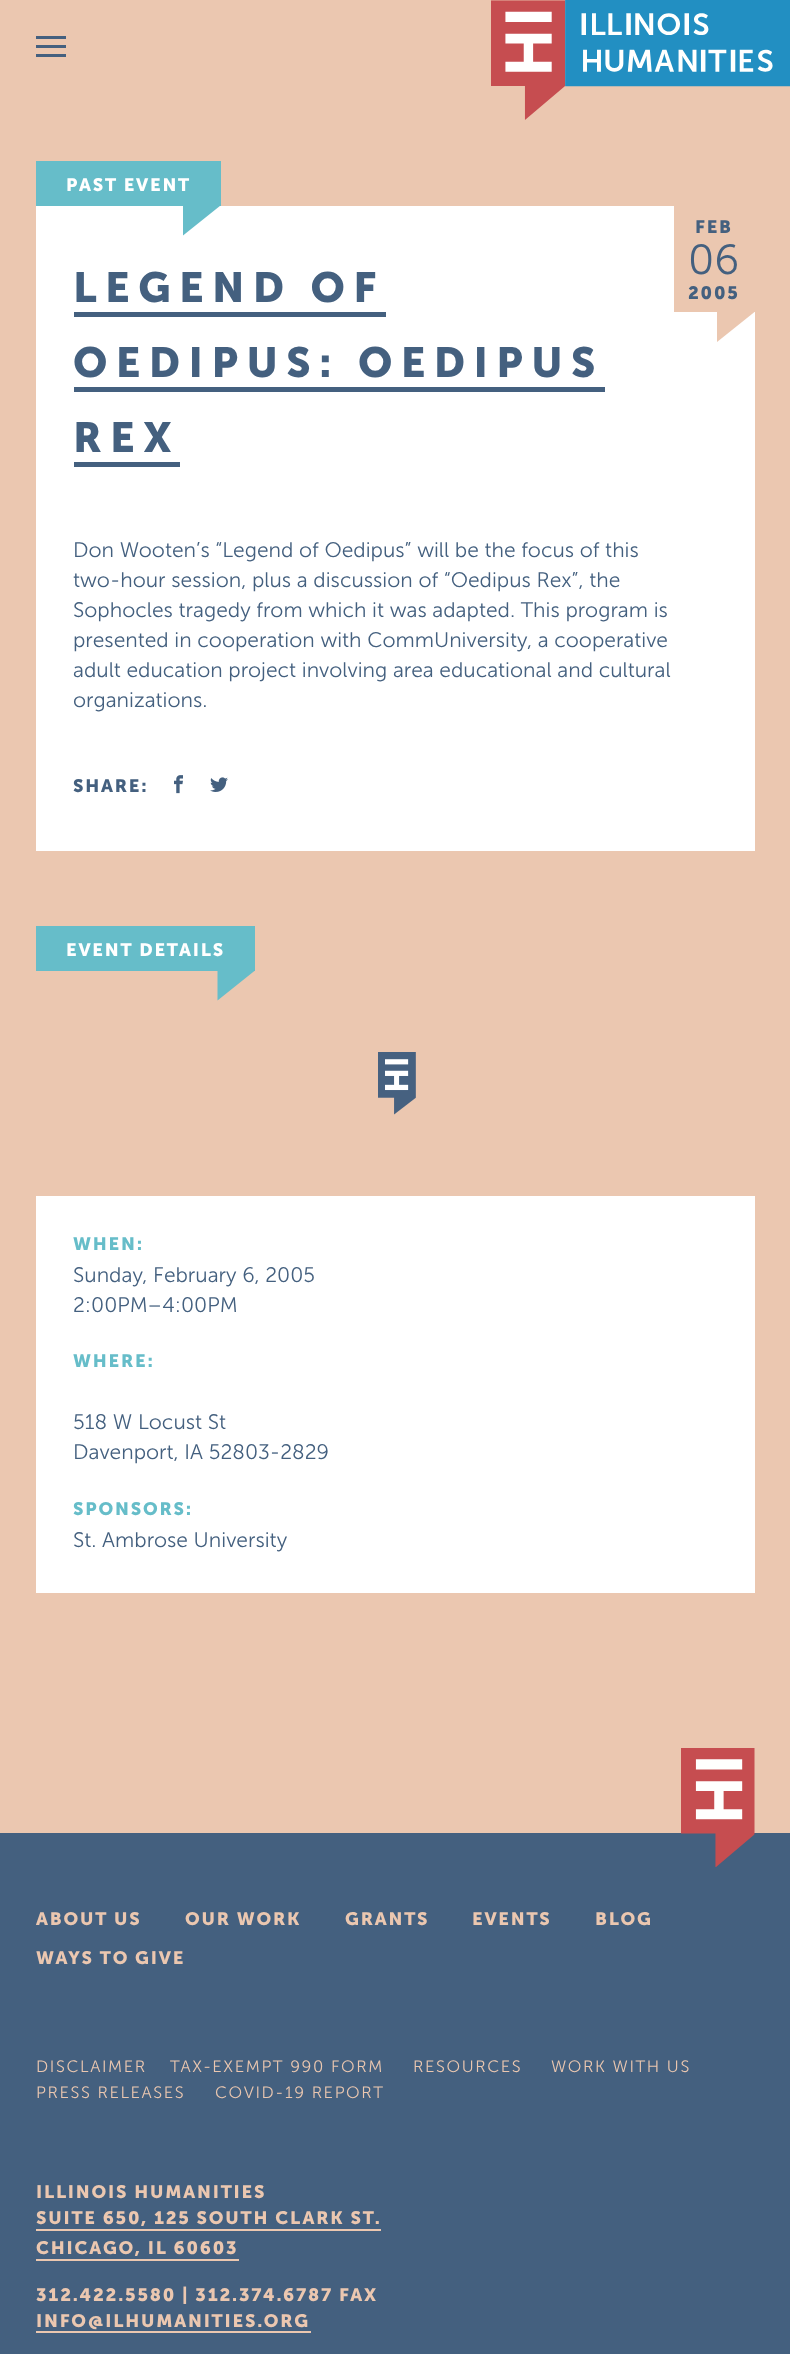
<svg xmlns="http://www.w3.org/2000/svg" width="790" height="2354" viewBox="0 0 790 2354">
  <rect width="100%" height="100%" fill="#ebc7b0"/>
  <rect x="36" y="36" width="30" height="3" fill="#44607f"/>
  <rect x="36" y="45" width="30" height="3" fill="#44607f"/>
  <rect x="36" y="54" width="30" height="3" fill="#44607f"/>
  <image x="491" y="0" width="299" height="120" href="img1.png"/>
  <rect x="36" y="161" width="185" height="45" fill="#66bdc9"/>
  <text x="66" y="191" font-family="'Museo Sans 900'" font-size="18" font-weight="bold" letter-spacing="1.8" fill="#ffffff">PAST EVENT</text>
  <rect x="36" y="206" width="719" height="645" fill="#ffffff"/>
  <path d="M183 205.5H220.5L183 235.5Z" fill="#66bdc9"/>
  <rect x="674" y="206" width="81" height="106" fill="#ebc7b0"/>
  <text x="695" y="233" font-family="'Museo Sans 900'" font-size="18" font-weight="bold" letter-spacing="1.8" fill="#44607f">FEB</text>
  <text x="688" y="274" font-family="'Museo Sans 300'" font-size="42" font-weight="300" fill="#44607f">06</text>
  <text x="688" y="299" font-family="'Museo Sans 900'" font-size="18" font-weight="bold" letter-spacing="1.8" fill="#44607f">2005</text>
  <path d="M717 312H754.5L717 342Z" fill="#ebc7b0"/>
  <text x="73" y="302" font-family="'Museo Sans 900'" font-size="42" font-weight="bold" letter-spacing="8.4" fill="#44607f">LEGEND OF</text>
  <rect x="74" y="312" width="312" height="5" fill="#44607f"/>
  <text x="73" y="377" font-family="'Museo Sans 900'" font-size="42" font-weight="bold" letter-spacing="8.4" fill="#44607f">OEDIPUS: OEDIPUS</text>
  <rect x="74" y="387" width="531" height="5" fill="#44607f"/>
  <text x="73" y="452" font-family="'Museo Sans 900'" font-size="42" font-weight="bold" letter-spacing="8.4" fill="#44607f">REX</text>
  <rect x="74" y="462" width="106" height="5" fill="#44607f"/>
  <text x="73" y="557" font-family="'Museo Sans 300'" font-size="21" font-weight="300" fill="#44607f">Don Wooten’s “Legend of Oedipus” will be the focus of this</text>
  <text x="73" y="587" font-family="'Museo Sans 300'" font-size="21" font-weight="300" fill="#44607f">two-hour session, plus a discussion of “Oedipus Rex”, the</text>
  <text x="73" y="617" font-family="'Museo Sans 300'" font-size="21" font-weight="300" fill="#44607f">Sophocles tragedy from which it was adapted. This program is</text>
  <text x="73" y="647" font-family="'Museo Sans 300'" font-size="21" font-weight="300" fill="#44607f">presented in cooperation with CommUniversity, a cooperative</text>
  <text x="73" y="677" font-family="'Museo Sans 300'" font-size="21" font-weight="300" fill="#44607f">adult education project involving area educational and cultural</text>
  <text x="73" y="707" font-family="'Museo Sans 300'" font-size="21" font-weight="300" fill="#44607f">organizations.</text>
  <text x="73" y="792" font-family="'Museo Sans 900'" font-size="18" font-weight="bold" letter-spacing="1.8" fill="#44607f">SHARE:</text>
  <image x="174" y="775" width="9" height="19" href="img2.png"/>
  <image x="210" y="777" width="18" height="15" href="img3.png"/>
  <rect x="36" y="926" width="219" height="45" fill="#66bdc9"/>
  <text x="66" y="956" font-family="'Museo Sans 900'" font-size="18" font-weight="bold" letter-spacing="1.8" fill="#ffffff">EVENT DETAILS</text>
  <path d="M217.5 970.5H255L217.5 1000.5Z" fill="#66bdc9"/>
  <image x="378" y="1052" width="38" height="63" href="img4.png"/>
  <rect x="36" y="1196" width="719" height="397" fill="#ffffff"/>
  <text x="73" y="1250" font-family="'Museo Sans 900'" font-size="18" font-weight="bold" letter-spacing="1.8" fill="#66bdc9">WHEN:</text>
  <text x="73" y="1282" font-family="'Museo Sans 300'" font-size="21" font-weight="300" fill="#44607f">Sunday, February 6, 2005</text>
  <text x="73" y="1312" font-family="'Museo Sans 300'" font-size="21" font-weight="300" fill="#44607f">2:00PM–4:00PM</text>
  <text x="73" y="1367" font-family="'Museo Sans 900'" font-size="18" font-weight="bold" letter-spacing="1.8" fill="#66bdc9">WHERE:</text>
  <text x="73" y="1429" font-family="'Museo Sans 300'" font-size="21" font-weight="300" fill="#44607f">518 W Locust St</text>
  <text x="73" y="1459" font-family="'Museo Sans 300'" font-size="21" font-weight="300" fill="#44607f">Davenport, IA 52803-2829</text>
  <text x="73" y="1515" font-family="'Museo Sans 900'" font-size="18" font-weight="bold" letter-spacing="1.8" fill="#66bdc9">SPONSORS:</text>
  <text x="73" y="1547" font-family="'Museo Sans 300'" font-size="21" font-weight="300" fill="#44607f">St. Ambrose University</text>
  <rect x="0" y="1833" width="790" height="521" fill="#44607f"/>
  <image x="681" y="1748" width="74" height="119" href="img5.png"/>
  <text x="36" y="1925" font-family="'Museo Sans 900'" font-size="18" font-weight="bold" letter-spacing="1.8" fill="#ebc7b0">ABOUT US</text>
  <text x="185" y="1925" font-family="'Museo Sans 900'" font-size="18" font-weight="bold" letter-spacing="1.8" fill="#ebc7b0">OUR WORK</text>
  <text x="345" y="1925" font-family="'Museo Sans 900'" font-size="18" font-weight="bold" letter-spacing="1.8" fill="#ebc7b0">GRANTS</text>
  <text x="472" y="1925" font-family="'Museo Sans 900'" font-size="18" font-weight="bold" letter-spacing="1.8" fill="#ebc7b0">EVENTS</text>
  <text x="595" y="1925" font-family="'Museo Sans 900'" font-size="18" font-weight="bold" letter-spacing="1.8" fill="#ebc7b0">BLOG</text>
  <text x="36" y="1964" font-family="'Museo Sans 900'" font-size="18" font-weight="bold" letter-spacing="1.8" fill="#ebc7b0">WAYS TO GIVE</text>
  <text x="36" y="2072" font-family="'Museo Sans 300'" font-size="16.5" font-weight="300" letter-spacing="1.6" fill="#ebc7b0">DISCLAIMER</text>
  <text x="170" y="2072" font-family="'Museo Sans 300'" font-size="16.5" font-weight="300" letter-spacing="1.6" fill="#ebc7b0">TAX-EXEMPT 990 FORM</text>
  <text x="413" y="2072" font-family="'Museo Sans 300'" font-size="16.5" font-weight="300" letter-spacing="1.6" fill="#ebc7b0">RESOURCES</text>
  <text x="551" y="2072" font-family="'Museo Sans 300'" font-size="16.5" font-weight="300" letter-spacing="1.6" fill="#ebc7b0">WORK WITH US</text>
  <text x="36" y="2098" font-family="'Museo Sans 300'" font-size="16.5" font-weight="300" letter-spacing="1.6" fill="#ebc7b0">PRESS RELEASES</text>
  <text x="215" y="2098" font-family="'Museo Sans 300'" font-size="16.5" font-weight="300" letter-spacing="1.6" fill="#ebc7b0">COVID-19 REPORT</text>
  <text x="36" y="2198" font-family="'Museo Sans 900'" font-size="18" font-weight="bold" letter-spacing="1.8" fill="#ebc7b0">ILLINOIS HUMANITIES</text>
  <text x="36" y="2224" font-family="'Museo Sans 900'" font-size="18" font-weight="bold" letter-spacing="1.8" fill="#ebc7b0">SUITE 650, 125 SOUTH CLARK ST.</text>
  <rect x="36" y="2229" width="345" height="2" fill="#ebc7b0"/>
  <text x="36" y="2254" font-family="'Museo Sans 900'" font-size="18" font-weight="bold" letter-spacing="1.8" fill="#ebc7b0">CHICAGO, IL 60603</text>
  <rect x="36" y="2259" width="203" height="2" fill="#ebc7b0"/>
  <text x="36" y="2301" font-family="'Museo Sans 900'" font-size="18" font-weight="bold" letter-spacing="1.8" fill="#ebc7b0">312.422.5580 | 312.374.6787 FAX</text>
  <text x="36" y="2327" font-family="'Museo Sans 900'" font-size="18" font-weight="bold" letter-spacing="1.8" fill="#ebc7b0">INFO@ILHUMANITIES.ORG</text>
  <rect x="36" y="2331" width="275" height="2" fill="#ebc7b0"/>
</svg>
